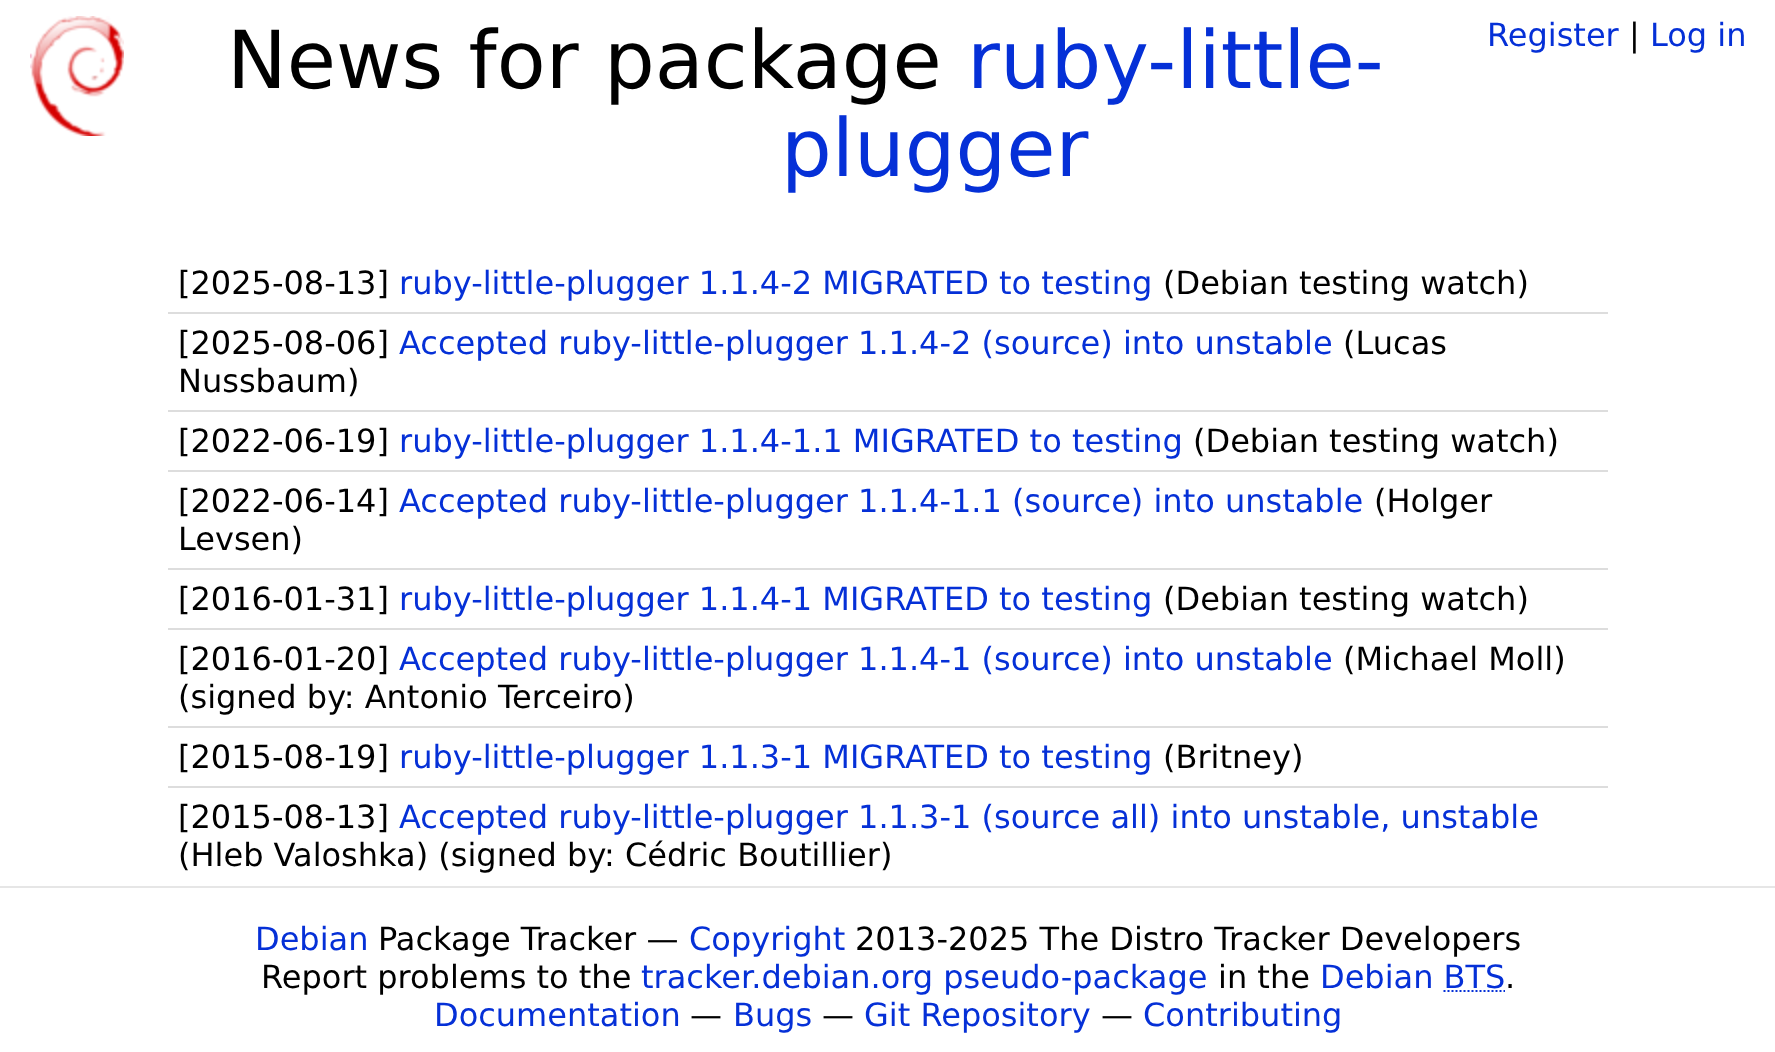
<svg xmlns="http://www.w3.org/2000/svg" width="1775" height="1052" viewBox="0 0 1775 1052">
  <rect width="100%" height="100%" fill="#ffffff"/>
  <image x="30" y="16" width="94" height="120" href="img1.png"/>
  <text x="227" y="88" font-family="DejaVu Sans" font-size="80" fill="#000000">News for package</text>
  <text x="967" y="88" font-family="DejaVu Sans" font-size="80" fill="#0530d7">ruby-little-</text>
  <text x="781" y="176" font-family="DejaVu Sans" font-size="80" fill="#0530d7">plugger</text>
  <text x="1487" y="46" font-family="DejaVu Sans" font-size="32" fill="#0530d7">Register</text>
  <text x="1629" y="46" font-family="DejaVu Sans" font-size="32" fill="#000000">|</text>
  <text x="1650" y="46" font-family="DejaVu Sans" font-size="32" fill="#0530d7">Log in</text>
  <rect x="168" y="312" width="1440" height="2" fill="#dddddd"/>
  <text x="178" y="294" font-family="DejaVu Sans" font-size="32" fill="#000000">[2025-08-13]</text>
  <text x="399" y="294" font-family="DejaVu Sans" font-size="32" fill="#0530d7">ruby-little-plugger 1.1.4-2 MIGRATED to testing</text>
  <text x="1163" y="294" font-family="DejaVu Sans" font-size="32" fill="#000000">(Debian testing watch)</text>
  <rect x="168" y="410" width="1440" height="2" fill="#dddddd"/>
  <text x="178" y="354" font-family="DejaVu Sans" font-size="32" fill="#000000">[2025-08-06]</text>
  <text x="399" y="354" font-family="DejaVu Sans" font-size="32" fill="#0530d7">Accepted ruby-little-plugger 1.1.4-2 (source) into unstable</text>
  <text x="1343" y="354" font-family="DejaVu Sans" font-size="32" fill="#000000">(Lucas</text>
  <text x="178" y="392" font-family="DejaVu Sans" font-size="32" fill="#000000">Nussbaum)</text>
  <rect x="168" y="470" width="1440" height="2" fill="#dddddd"/>
  <text x="178" y="452" font-family="DejaVu Sans" font-size="32" fill="#000000">[2022-06-19]</text>
  <text x="399" y="452" font-family="DejaVu Sans" font-size="32" fill="#0530d7">ruby-little-plugger 1.1.4-1.1 MIGRATED to testing</text>
  <text x="1193" y="452" font-family="DejaVu Sans" font-size="32" fill="#000000">(Debian testing watch)</text>
  <rect x="168" y="568" width="1440" height="2" fill="#dddddd"/>
  <text x="178" y="512" font-family="DejaVu Sans" font-size="32" fill="#000000">[2022-06-14]</text>
  <text x="399" y="512" font-family="DejaVu Sans" font-size="32" fill="#0530d7">Accepted ruby-little-plugger 1.1.4-1.1 (source) into unstable</text>
  <text x="1374" y="512" font-family="DejaVu Sans" font-size="32" fill="#000000">(Holger</text>
  <text x="178" y="550" font-family="DejaVu Sans" font-size="32" fill="#000000">Levsen)</text>
  <rect x="168" y="628" width="1440" height="2" fill="#dddddd"/>
  <text x="178" y="610" font-family="DejaVu Sans" font-size="32" fill="#000000">[2016-01-31]</text>
  <text x="399" y="610" font-family="DejaVu Sans" font-size="32" fill="#0530d7">ruby-little-plugger 1.1.4-1 MIGRATED to testing</text>
  <text x="1163" y="610" font-family="DejaVu Sans" font-size="32" fill="#000000">(Debian testing watch)</text>
  <rect x="168" y="726" width="1440" height="2" fill="#dddddd"/>
  <text x="178" y="670" font-family="DejaVu Sans" font-size="32" fill="#000000">[2016-01-20]</text>
  <text x="399" y="670" font-family="DejaVu Sans" font-size="32" fill="#0530d7">Accepted ruby-little-plugger 1.1.4-1 (source) into unstable</text>
  <text x="1343" y="670" font-family="DejaVu Sans" font-size="32" fill="#000000">(Michael Moll)</text>
  <text x="178" y="708" font-family="DejaVu Sans" font-size="32" fill="#000000">(signed by: Antonio Terceiro)</text>
  <text x="178" y="768" font-family="DejaVu Sans" font-size="32" fill="#000000">[2015-08-19]</text>
  <text x="399" y="768" font-family="DejaVu Sans" font-size="32" fill="#0530d7">ruby-little-plugger 1.1.3-1 MIGRATED to testing</text>
  <text x="1163" y="768" font-family="DejaVu Sans" font-size="32" fill="#000000">(Britney)</text>
  <rect x="168" y="786" width="1440" height="2" fill="#dddddd"/>
  <text x="178" y="828" font-family="DejaVu Sans" font-size="32" fill="#000000">[2015-08-13]</text>
  <text x="399" y="828" font-family="DejaVu Sans" font-size="32" fill="#0530d7">Accepted ruby-little-plugger 1.1.3-1 (source all) into unstable, unstable</text>
  <text x="178" y="866" font-family="DejaVu Sans" font-size="32" fill="#000000">(Hleb Valoshka) (signed by: Cédric Boutillier)</text>
  <rect x="0" y="886" width="1775" height="2" fill="#e6e6e6"/>
  <text x="255" y="950" font-family="DejaVu Sans" font-size="32" fill="#0530d7">Debian</text>
  <text x="378" y="950" font-family="DejaVu Sans" font-size="32" fill="#000000">Package Tracker —</text>
  <text x="689" y="950" font-family="DejaVu Sans" font-size="32" fill="#0530d7">Copyright</text>
  <text x="855" y="950" font-family="DejaVu Sans" font-size="32" fill="#000000">2013-2025 The Distro Tracker Developers</text>
  <text x="261" y="988" font-family="DejaVu Sans" font-size="32" fill="#000000">Report problems to the</text>
  <text x="641" y="988" font-family="DejaVu Sans" font-size="32" fill="#0530d7">tracker.debian.org pseudo-package</text>
  <text x="1218" y="988" font-family="DejaVu Sans" font-size="32" fill="#000000">in the</text>
  <text x="1320" y="988" font-family="DejaVu Sans" font-size="32" fill="#0530d7">Debian BTS</text>
  <path d="M1443.5 991H1505" fill="none" stroke="#0530d7" stroke-width="2" stroke-dasharray="2 2"/>
  <text x="1505" y="988" font-family="DejaVu Sans" font-size="32" fill="#000000">.</text>
  <text x="434" y="1026" font-family="DejaVu Sans" font-size="32" fill="#0530d7">Documentation</text>
  <text x="690" y="1026" font-family="DejaVu Sans" font-size="32" fill="#000000">—</text>
  <text x="733" y="1026" font-family="DejaVu Sans" font-size="32" fill="#0530d7">Bugs</text>
  <text x="822" y="1026" font-family="DejaVu Sans" font-size="32" fill="#000000">—</text>
  <text x="864" y="1026" font-family="DejaVu Sans" font-size="32" fill="#0530d7">Git Repository</text>
  <text x="1101" y="1026" font-family="DejaVu Sans" font-size="32" fill="#000000">—</text>
  <text x="1143" y="1026" font-family="DejaVu Sans" font-size="32" fill="#0530d7">Contributing</text>
</svg>
